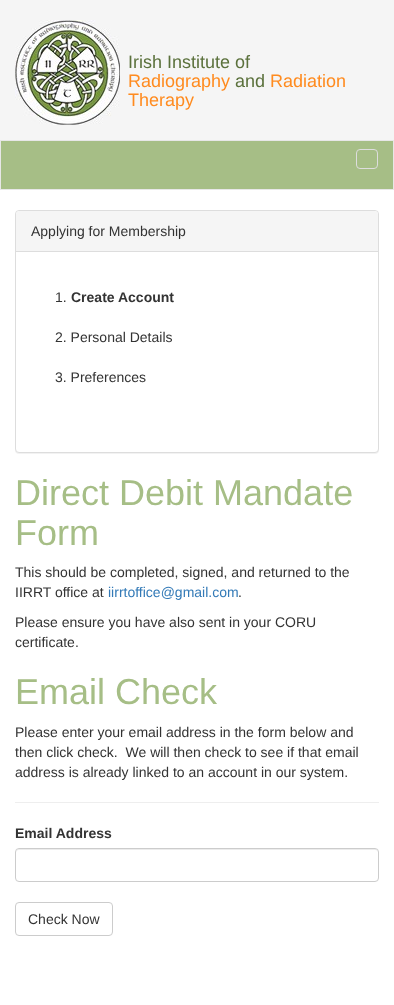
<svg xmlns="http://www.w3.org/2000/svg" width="394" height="1005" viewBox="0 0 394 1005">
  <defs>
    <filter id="blur1" x="-50%" y="-200%" width="200%" height="500%"><feGaussianBlur stdDeviation="0.5"/></filter>
  </defs>
  <rect width="100%" height="100%" fill="#ffffff"/>
  <rect x="0" y="0" width="394" height="140" fill="#f5f5f5"/>
  <image x="15" y="20" width="105" height="105" href="img1.png"/>
  <text x="128" y="68" font-family="Liberation Sans" font-size="18" fill="#5b713c">Irish Institute of</text>
  <text x="128" y="87" font-family="Liberation Sans" font-size="18" fill="#ff8b1f">Radiography</text>
  <text x="235" y="87" font-family="Liberation Sans" font-size="18" fill="#5b713c">and</text>
  <text x="270" y="87" font-family="Liberation Sans" font-size="18" fill="#ff8b1f">Radiation</text>
  <text x="128" y="106" font-family="Liberation Sans" font-size="18" fill="#ff8b1f">Therapy</text>
  <rect x="0.5" y="140.5" width="393" height="49" fill="#a6be86" stroke="#e7e7e7"/>
  <rect x="356.5" y="149.5" width="21" height="19" rx="3.5" fill="none" stroke="#dddddd"/>
  <rect x="15" y="211" width="364" height="243" rx="4" fill="#000000" fill-opacity="0.05" filter="url(#blur1)"/>
  <rect x="15.5" y="210.5" width="363" height="242" rx="3.5" fill="#ffffff" stroke="#dddddd"/>
  <path d="M19 211H375C376.5 211 378 212.5 378 214V252H16V214C16 212.5 17.5 211 19 211Z" fill="#f5f5f5"/>
  <rect x="16" y="251" width="362" height="1" fill="#dddddd"/>
  <text x="31" y="236" font-family="Liberation Sans" font-size="14" fill="#333333">Applying for Membership</text>
  <text x="55" y="302" font-family="Liberation Sans" font-size="14" fill="#333333">1.</text>
  <text x="71" y="302" font-family="Liberation Sans" font-size="14" font-weight="bold" fill="#333333">Create Account</text>
  <text x="55" y="342" font-family="Liberation Sans" font-size="14" fill="#333333">2. Personal Details</text>
  <text x="55" y="382" font-family="Liberation Sans" font-size="14" fill="#333333">3. Preferences</text>
  <text x="15" y="505" font-family="Liberation Sans" font-size="36" fill="#a6be86">Direct Debit Mandate</text>
  <text x="15" y="545" font-family="Liberation Sans" font-size="36" fill="#a6be86">Form</text>
  <text x="15" y="577" font-family="Liberation Sans" font-size="14" fill="#333333">This should be completed, signed, and returned to the</text>
  <text x="15" y="597" font-family="Liberation Sans" font-size="14" fill="#333333">IIRRT office at</text>
  <text x="108" y="597" font-family="Liberation Sans" font-size="14" fill="#337ab7">iirrtoffice@gmail.com</text>
  <text x="238" y="597" font-family="Liberation Sans" font-size="14" fill="#333333">.</text>
  <text x="15" y="627" font-family="Liberation Sans" font-size="14" fill="#333333">Please ensure you have also sent in your CORU</text>
  <text x="15" y="647" font-family="Liberation Sans" font-size="14" fill="#333333">certificate.</text>
  <text x="15" y="704" font-family="Liberation Sans" font-size="36" fill="#a6be86">Email Check</text>
  <text x="15" y="737" font-family="Liberation Sans" font-size="14" fill="#333333">Please enter your email address in the form below and</text>
  <text x="15" y="757" font-family="Liberation Sans" font-size="14" fill="#333333" xml:space="preserve">then click check.  We will then check to see if that email</text>
  <text x="15" y="777" font-family="Liberation Sans" font-size="14" fill="#333333">address is already linked to an account in our system.</text>
  <rect x="15" y="802" width="364" height="1" fill="#eeeeee"/>
  <text x="15" y="838" font-family="Liberation Sans" font-size="14" font-weight="bold" fill="#333333">Email Address</text>
  <path d="M19 850H375C377 850 378 851 378 853C378 851 377 849 375 849H19L17 850L16 853C16 851 17 850 19 850Z" fill="#ececec"/>
  <rect x="15.5" y="848.5" width="363" height="33" rx="3.5" fill="none" stroke="#cccccc"/>
  <rect x="15.5" y="902.5" width="97" height="33" rx="3.5" fill="none" stroke="#cccccc"/>
  <text x="28" y="924" font-family="Liberation Sans" font-size="14" fill="#333333">Check Now</text>
</svg>
